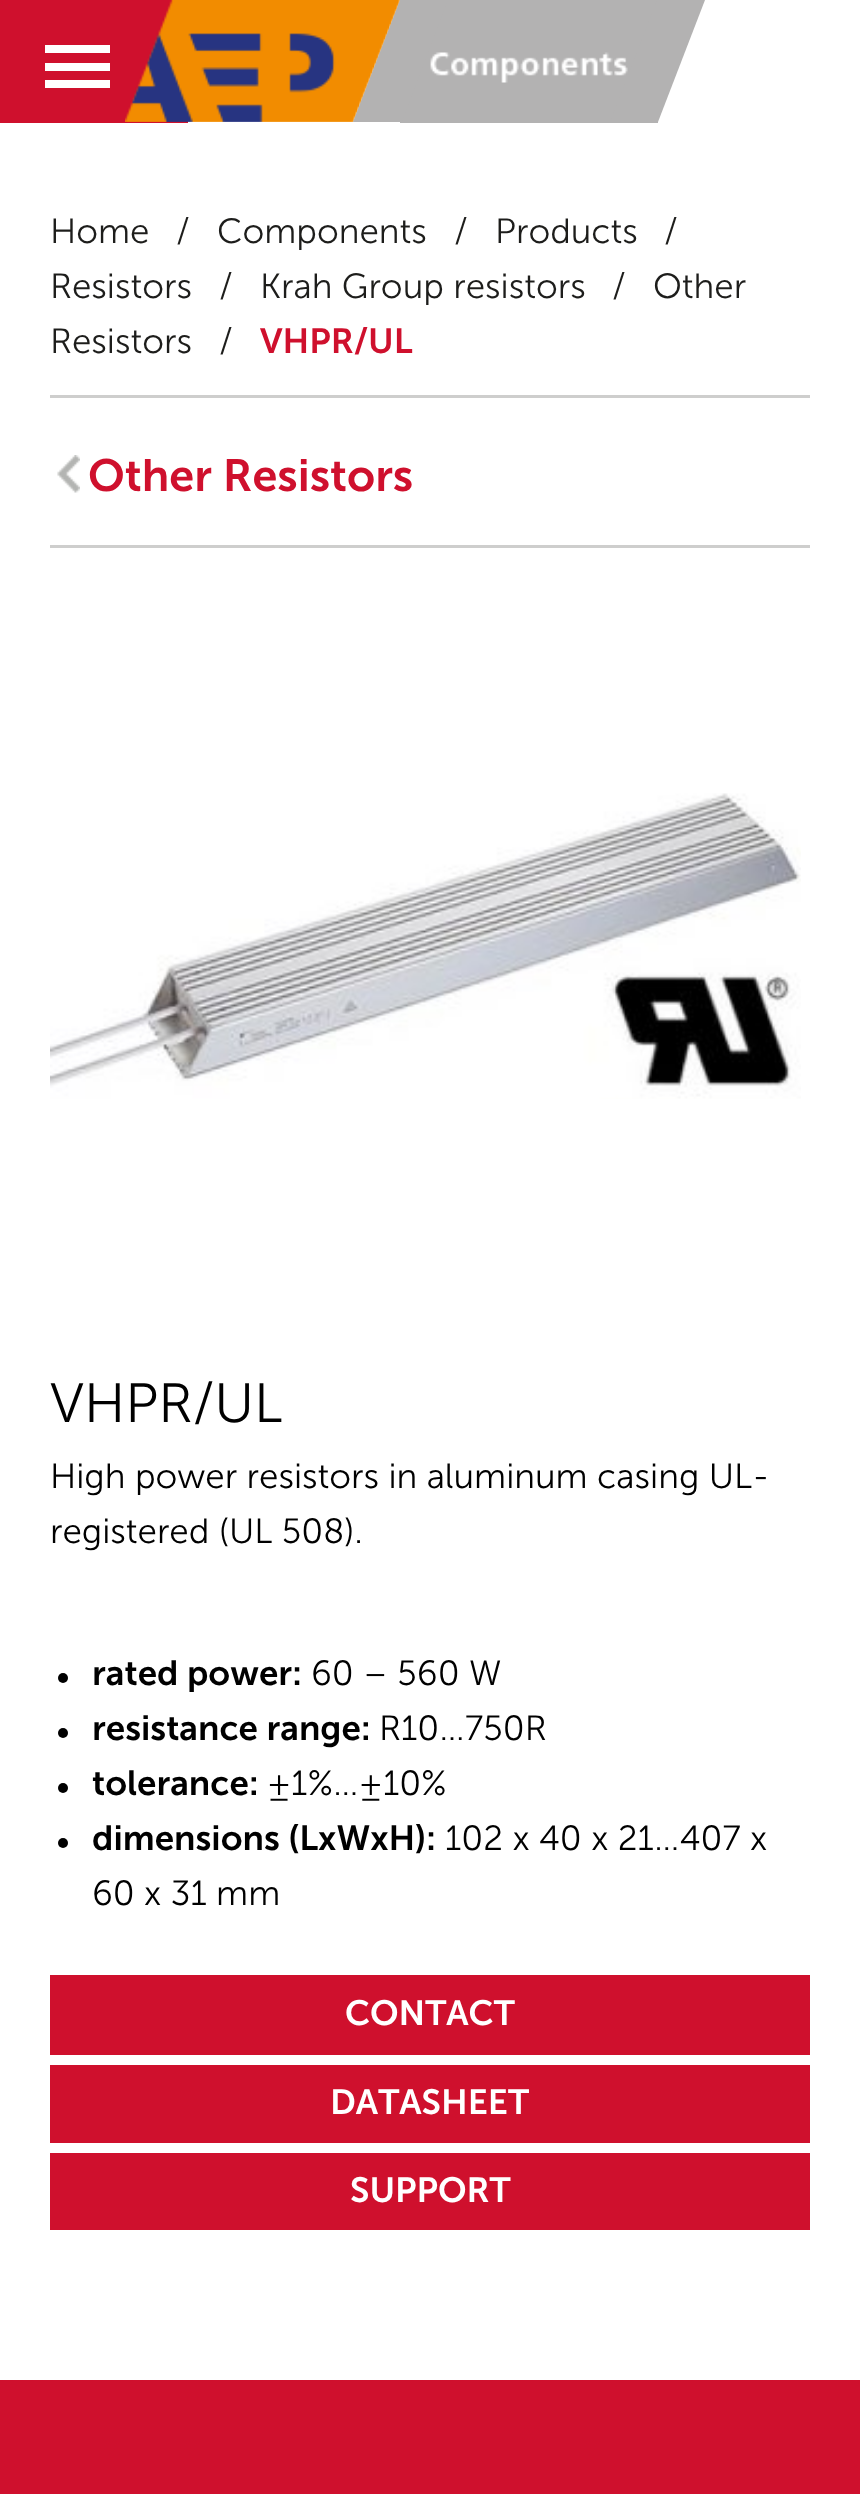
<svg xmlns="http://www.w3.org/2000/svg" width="860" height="2494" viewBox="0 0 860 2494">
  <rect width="100%" height="100%" fill="#ffffff"/>
  <rect x="0" y="0" width="188" height="123" fill="#cf102d"/>
  <rect x="45" y="63" width="65" height="8" fill="#ffffff"/>
  <rect x="45" y="45" width="65" height="8" fill="#ffffff"/>
  <rect x="45" y="80" width="65" height="8" fill="#ffffff"/>
  <image x="125" y="0" width="275" height="122" href="img1.png"/>
  <rect x="400" y="0" width="258" height="123" fill="#b3b2b2"/>
  <path d="M400 0H448L402 122H353Z" fill="#b3b2b2"/>
  <path d="M657 0H705L658 122H610Z" fill="#b3b2b2"/>
  <image x="430" y="52" width="198" height="31" href="img2.png"/>
  <rect x="50" y="395" width="760" height="3" fill="#cececd"/>
  <text x="50" y="243" font-family="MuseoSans" font-size="35" fill="#1d1d1b">Home</text>
  <text x="176" y="243" font-family="MuseoSans" font-size="35" fill="#1d1d1b">/</text>
  <text x="217" y="243" font-family="MuseoSans" font-size="35" fill="#1d1d1b">Components</text>
  <text x="454" y="243" font-family="MuseoSans" font-size="35" fill="#1d1d1b">/</text>
  <text x="495" y="243" font-family="MuseoSans" font-size="35" fill="#1d1d1b">Products</text>
  <text x="664" y="243" font-family="MuseoSans" font-size="35" fill="#1d1d1b">/</text>
  <text x="50" y="298" font-family="MuseoSans" font-size="35" fill="#1d1d1b">Resistors</text>
  <text x="219" y="298" font-family="MuseoSans" font-size="35" fill="#1d1d1b">/</text>
  <text x="260" y="298" font-family="MuseoSans" font-size="35" fill="#1d1d1b">Krah Group resistors</text>
  <text x="612" y="298" font-family="MuseoSans" font-size="35" fill="#1d1d1b">/</text>
  <text x="653" y="298" font-family="MuseoSans" font-size="35" fill="#1d1d1b">Other</text>
  <text x="50" y="353" font-family="MuseoSans" font-size="35" fill="#1d1d1b">Resistors</text>
  <text x="219" y="353" font-family="MuseoSans" font-size="35" fill="#1d1d1b">/</text>
  <text x="260" y="353" font-family="MuseoSans" font-size="35" font-weight="bold" fill="#cf102d">VHPR/UL</text>
  <rect x="50" y="545" width="760" height="3" fill="#cececd"/>
  <image x="57" y="455" width="23" height="38" href="img3.png"/>
  <text x="88" y="491" font-family="MuseoSans" font-size="45" font-weight="bold" fill="#cf102d">Other Resistors</text>
  <image x="50" y="793" width="751" height="306" href="img4.png"/>
  <text x="50" y="1422" font-family="MuseoSans" font-size="55" fill="#000000">VHPR/UL</text>
  <text x="50" y="1488" font-family="MuseoSans" font-size="35" fill="#000000">High power resistors in aluminum casing UL-</text>
  <text x="50" y="1543" font-family="MuseoSans" font-size="35" fill="#000000">registered (UL 508).</text>
  <circle cx="63" cy="1678" r="5" fill="#000000"/>
  <text x="92" y="1685" font-family="MuseoSans" font-size="35" font-weight="bold" fill="#000000">rated power:</text>
  <text x="311" y="1685" font-family="MuseoSans" font-size="35" fill="#000000">60 – 560 W</text>
  <circle cx="63" cy="1733" r="5" fill="#000000"/>
  <text x="92" y="1740" font-family="MuseoSans" font-size="35" font-weight="bold" fill="#000000">resistance range:</text>
  <text x="379" y="1740" font-family="MuseoSans" font-size="35" fill="#000000">R10 … 750R</text>
  <circle cx="63" cy="1788" r="5" fill="#000000"/>
  <text x="92" y="1795" font-family="MuseoSans" font-size="35" font-weight="bold" fill="#000000">tolerance:</text>
  <text x="267" y="1795" font-family="MuseoSans" font-size="35" fill="#000000">±1% … ±10%</text>
  <circle cx="63" cy="1843" r="5" fill="#000000"/>
  <text x="92" y="1850" font-family="MuseoSans" font-size="35" font-weight="bold" fill="#000000">dimensions (LxWxH):</text>
  <text x="445" y="1850" font-family="MuseoSans" font-size="35" fill="#000000">102 x 40 x 21 … 407 x</text>
  <text x="92" y="1905" font-family="MuseoSans" font-size="35" fill="#000000">60 x 31 mm</text>
  <rect x="50" y="1975" width="760" height="80" fill="#cf102d"/>
  <text x="345" y="2025" font-family="MuseoSans" font-size="35" font-weight="bold" fill="#ffffff">CONTACT</text>
  <rect x="50" y="2065" width="760" height="78" fill="#cf102d"/>
  <text x="330" y="2114" font-family="MuseoSans" font-size="35" font-weight="bold" fill="#ffffff">DATASHEET</text>
  <rect x="50" y="2153" width="760" height="77" fill="#cf102d"/>
  <text x="350" y="2202" font-family="MuseoSans" font-size="35" font-weight="bold" fill="#ffffff">SUPPORT</text>
  <rect x="0" y="2380" width="860" height="114" fill="#cf102d"/>
</svg>
